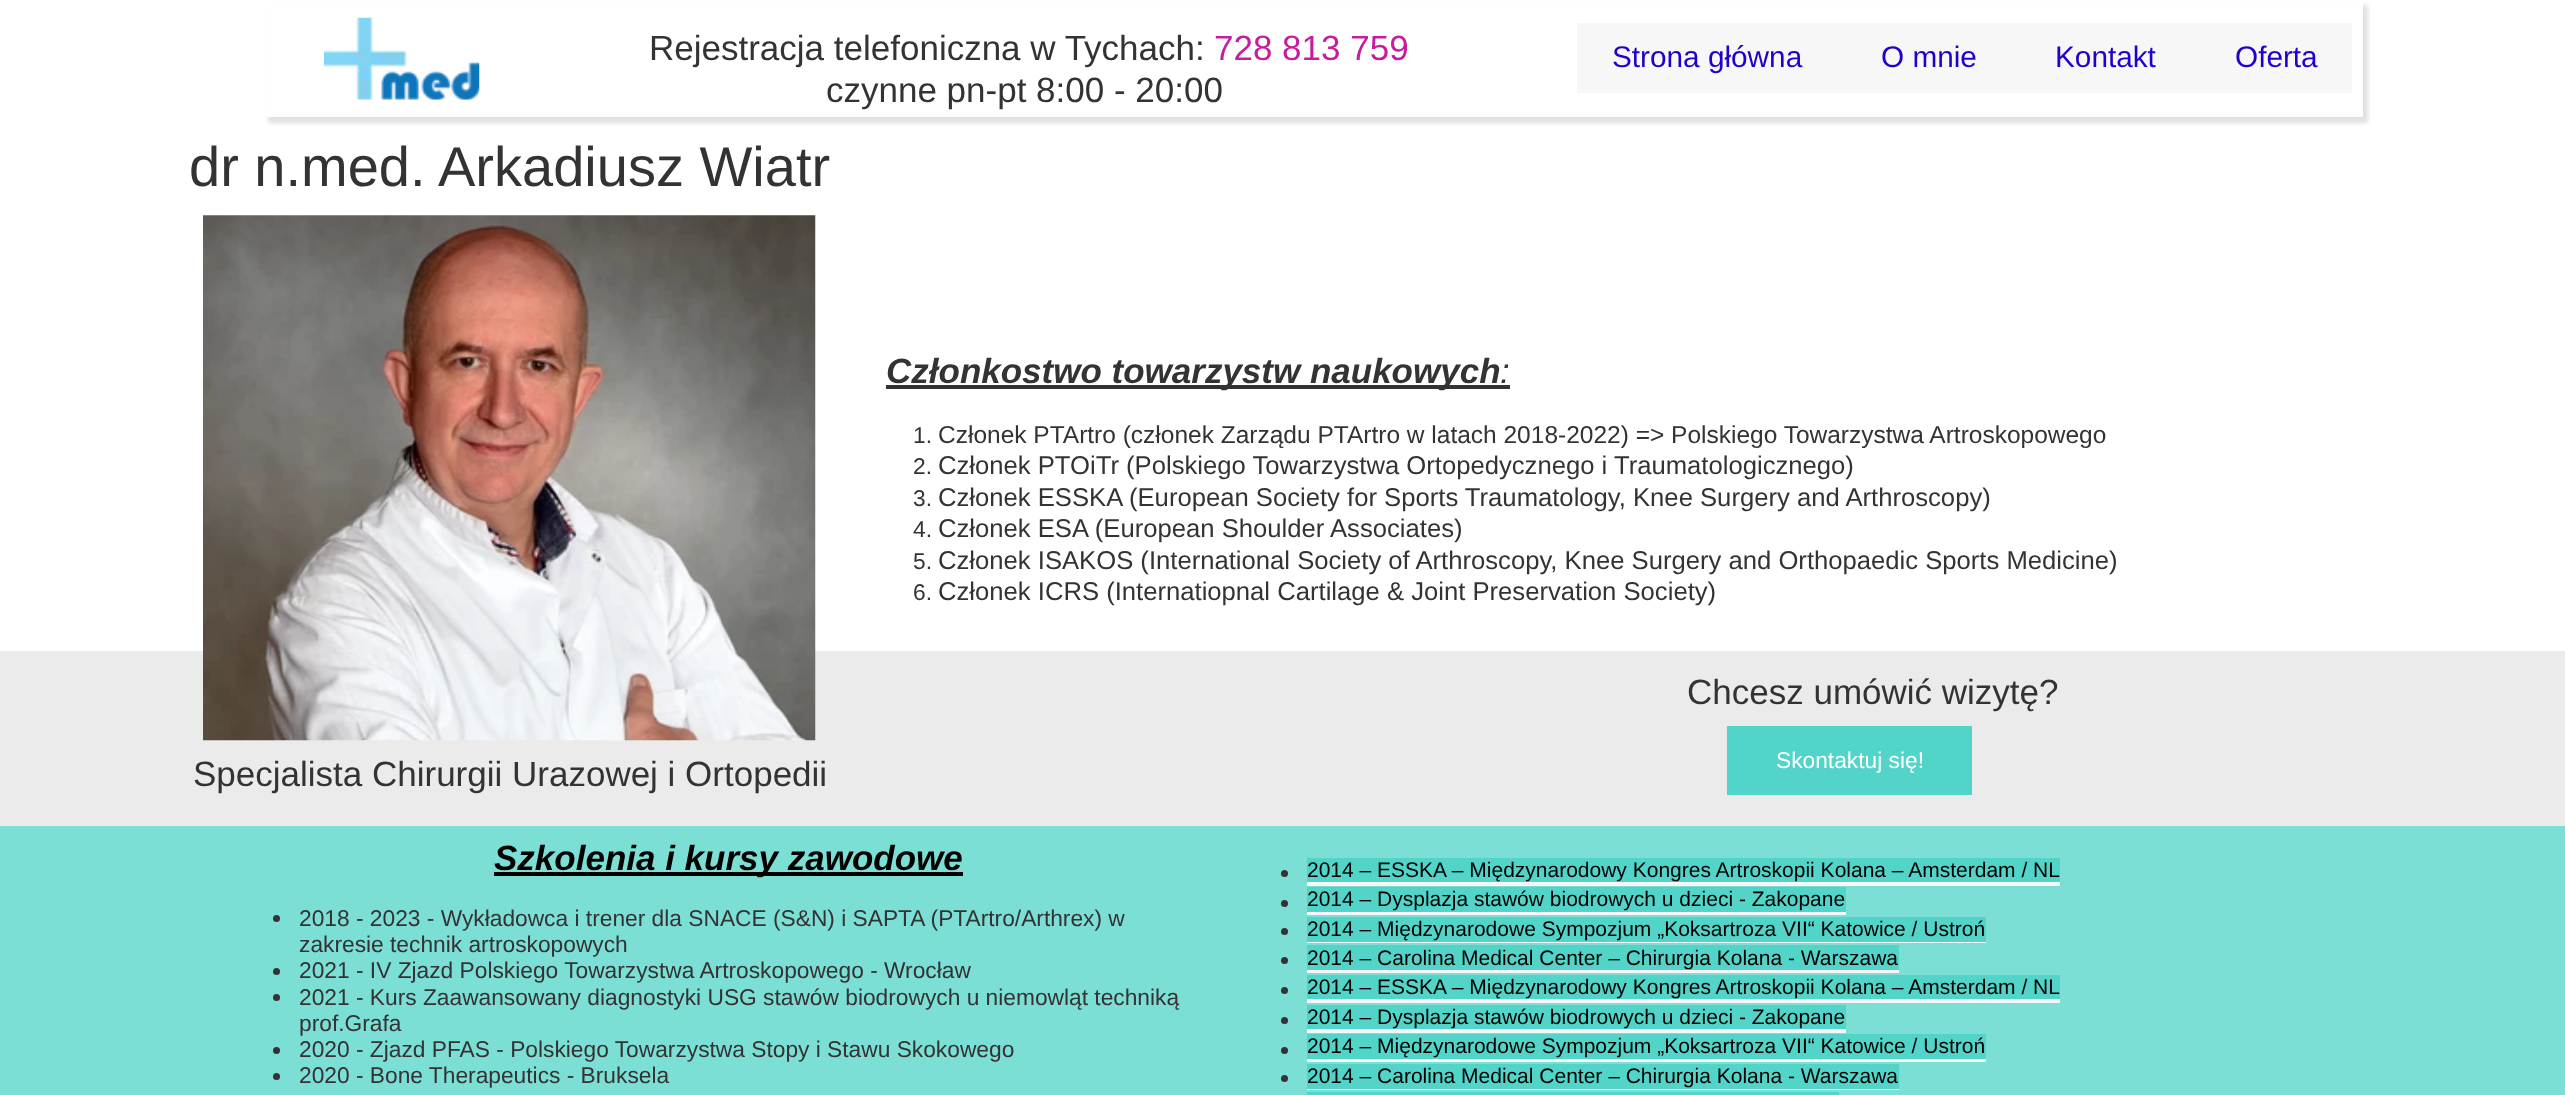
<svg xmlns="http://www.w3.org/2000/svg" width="2565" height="1095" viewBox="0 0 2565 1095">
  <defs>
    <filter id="blur1" x="-50%" y="-200%" width="200%" height="500%"><feGaussianBlur stdDeviation="2"/></filter>
  </defs>
  <rect width="100%" height="100%" fill="#ffffff"/>
  <rect x="268" y="5" width="2100" height="118" fill="#000000" fill-opacity="0.12" filter="url(#blur1)"/>
  <rect x="265" y="2" width="2098" height="115" fill="#ffffff"/>
  <image x="323" y="17" width="157" height="83" href="img1.png"/>
  <text x="649" y="60" font-family="Liberation Sans" font-size="35" fill="#333333">Rejestracja telefoniczna w Tychach:</text>
  <text x="1214" y="60" font-family="Liberation Sans" font-size="35" fill="#c71c9f">728 813 759</text>
  <text x="826" y="102" font-family="Liberation Sans" font-size="35" fill="#333333">czynne pn-pt 8:00 - 20:00</text>
  <rect x="1577" y="23" width="775" height="70" fill="#f7f7f7"/>
  <text x="1612" y="67" font-family="Liberation Sans" font-size="29.75" fill="#2200cc">Strona główna</text>
  <text x="1881" y="67" font-family="Liberation Sans" font-size="29.75" fill="#2200cc">O mnie</text>
  <text x="2055" y="67" font-family="Liberation Sans" font-size="29.75" fill="#2200cc">Kontakt</text>
  <text x="2235" y="67" font-family="Liberation Sans" font-size="29.75" fill="#2200cc">Oferta</text>
  <text x="189" y="186" font-family="Liberation Sans" font-size="56" fill="#333333">dr n.med. Arkadiusz Wiatr</text>
  <rect x="0" y="651" width="2565" height="175" fill="#ebebeb"/>
  <image x="203" y="215" width="613" height="526" href="img2.png"/>
  <rect x="886" y="385" width="624" height="4" fill="#333333"/>
  <text x="886" y="383" font-family="Liberation Sans" font-size="35" font-weight="bold" font-style="italic" fill="#333333">Członkostwo towarzystw naukowych</text>
  <text x="1500" y="383" font-family="Liberation Sans" font-size="35" font-style="italic" fill="#333333">:</text>
  <text x="913" y="443" font-family="Liberation Sans" font-size="22.75" fill="#333333">1.</text>
  <text x="938" y="443" font-family="Liberation Sans" font-size="24.5" fill="#333333">Członek PTArtro (członek Zarządu PTArtro w latach 2018-2022) =&gt; Polskiego Towarzystwa Artroskopowego</text>
  <text x="913" y="474" font-family="Liberation Sans" font-size="22.75" fill="#333333">2.</text>
  <text x="938" y="474" font-family="Liberation Sans" font-size="25.65" fill="#333333">Członek PTOiTr (Polskiego Towarzystwa Ortopedycznego i Traumatologicznego)</text>
  <text x="913" y="506" font-family="Liberation Sans" font-size="22.75" fill="#333333">3.</text>
  <text x="938" y="506" font-family="Liberation Sans" font-size="25.65" fill="#333333">Członek ESSKA (European Society for Sports Traumatology, Knee Surgery and Arthroscopy)</text>
  <text x="913" y="537" font-family="Liberation Sans" font-size="22.75" fill="#333333">4.</text>
  <text x="938" y="537" font-family="Liberation Sans" font-size="25.65" fill="#333333">Członek ESA (European Shoulder Associates)</text>
  <text x="913" y="569" font-family="Liberation Sans" font-size="22.75" fill="#333333">5.</text>
  <text x="938" y="569" font-family="Liberation Sans" font-size="25.65" fill="#333333">Członek ISAKOS (International Society of Arthroscopy, Knee Surgery and Orthopaedic Sports Medicine)</text>
  <text x="913" y="600" font-family="Liberation Sans" font-size="22.75" fill="#333333">6.</text>
  <text x="938" y="600" font-family="Liberation Sans" font-size="25.65" fill="#333333">Członek ICRS (Internatiopnal Cartilage &amp; Joint Preservation Society)</text>
  <text x="1687" y="704" font-family="Liberation Sans" font-size="35" fill="#333333">Chcesz umówić wizytę?</text>
  <text x="193" y="786" font-family="Liberation Sans" font-size="35" fill="#333333">Specjalista Chirurgii Urazowej i Ortopedii</text>
  <rect x="1727" y="726" width="245" height="69" fill="#52d4c9"/>
  <text x="1776" y="768" font-family="Liberation Sans" font-size="22.75" fill="#ffffff">Skontaktuj się!</text>
  <rect x="0" y="826" width="2565" height="269" fill="#7cdfd6"/>
  <rect x="494" y="872" width="469" height="4" fill="#000000"/>
  <text x="494" y="870" font-family="Liberation Sans" font-size="35" font-weight="bold" font-style="italic" fill="#000000">Szkolenia i kursy zawodowe</text>
  <circle cx="276.5" cy="918.5" r="3.5" fill="#333333"/>
  <text x="299" y="926" font-family="Liberation Sans" font-size="22.75" fill="#333333">2018 - 2023 - Wykładowca i trener dla SNACE (S&amp;N) i SAPTA (PTArtro/Arthrex) w</text>
  <text x="299" y="952" font-family="Liberation Sans" font-size="22.75" fill="#333333">zakresie technik artroskopowych</text>
  <circle cx="276.5" cy="971.5" r="3.5" fill="#333333"/>
  <text x="299" y="978" font-family="Liberation Sans" font-size="22.75" fill="#333333">2021 - IV Zjazd Polskiego Towarzystwa Artroskopowego - Wrocław</text>
  <circle cx="276.5" cy="997.5" r="3.5" fill="#333333"/>
  <text x="299" y="1005" font-family="Liberation Sans" font-size="22.75" fill="#333333">2021 - Kurs Zaawansowany diagnostyki USG stawów biodrowych u niemowląt techniką</text>
  <text x="299" y="1031" font-family="Liberation Sans" font-size="22.75" fill="#333333">prof.Grafa</text>
  <circle cx="276.5" cy="1050.5" r="3.5" fill="#333333"/>
  <text x="299" y="1057" font-family="Liberation Sans" font-size="22.75" fill="#333333">2020 - Zjazd PFAS - Polskiego Towarzystwa Stopy i Stawu Skokowego</text>
  <circle cx="276.5" cy="1076.5" r="3.5" fill="#333333"/>
  <text x="299" y="1083" font-family="Liberation Sans" font-size="22.75" fill="#333333">2020 - Bone Therapeutics - Bruksela</text>
  <circle cx="1284.5" cy="873.5" r="3.5" fill="#333333"/>
  <rect x="1307" y="858" width="753" height="24" fill="#52d4c9"/>
  <text x="1307" y="877" font-family="Liberation Sans" font-size="21" fill="#000000">2014 – ESSKA – Międzynarodowy Kongres Artroskopii Kolana – Amsterdam / NL</text>
  <rect x="1307" y="882" width="753" height="4" fill="#f7f7f7"/>
  <circle cx="1284.5" cy="903.5" r="3.5" fill="#333333"/>
  <rect x="1307" y="887" width="539" height="25" fill="#52d4c9"/>
  <text x="1307" y="906" font-family="Liberation Sans" font-size="21" fill="#000000">2014 – Dysplazja stawów biodrowych u dzieci - Zakopane</text>
  <rect x="1307" y="912" width="539" height="3" fill="#f7f7f7"/>
  <circle cx="1284.5" cy="931.5" r="3.5" fill="#333333"/>
  <rect x="1307" y="917" width="679" height="25" fill="#52d4c9"/>
  <text x="1307" y="936" font-family="Liberation Sans" font-size="21" fill="#000000">2014 – Międzynarodowe Sympozjum „Koksartroza VII“ Katowice / Ustroń</text>
  <rect x="1307" y="942" width="679" height="1" fill="#f7f7f7"/>
  <circle cx="1284.5" cy="960.5" r="3.5" fill="#333333"/>
  <rect x="1307" y="945" width="592" height="25" fill="#52d4c9"/>
  <text x="1307" y="965" font-family="Liberation Sans" font-size="21" fill="#000000">2014 – Carolina Medical Center – Chirurgia Kolana - Warszawa</text>
  <rect x="1307" y="970" width="592" height="3" fill="#f7f7f7"/>
  <circle cx="1284.5" cy="990.5" r="3.5" fill="#333333"/>
  <rect x="1307" y="975" width="753" height="24" fill="#52d4c9"/>
  <text x="1307" y="994" font-family="Liberation Sans" font-size="21" fill="#000000">2014 – ESSKA – Międzynarodowy Kongres Artroskopii Kolana – Amsterdam / NL</text>
  <rect x="1307" y="999" width="753" height="4" fill="#f7f7f7"/>
  <circle cx="1284.5" cy="1020.5" r="3.5" fill="#333333"/>
  <rect x="1307" y="1005" width="539" height="24" fill="#52d4c9"/>
  <text x="1307" y="1024" font-family="Liberation Sans" font-size="21" fill="#000000">2014 – Dysplazja stawów biodrowych u dzieci - Zakopane</text>
  <rect x="1307" y="1029" width="539" height="4" fill="#f7f7f7"/>
  <circle cx="1284.5" cy="1050.5" r="3.5" fill="#333333"/>
  <rect x="1307" y="1034" width="679" height="25" fill="#52d4c9"/>
  <text x="1307" y="1053" font-family="Liberation Sans" font-size="21" fill="#000000">2014 – Międzynarodowe Sympozjum „Koksartroza VII“ Katowice / Ustroń</text>
  <rect x="1307" y="1059" width="679" height="3" fill="#f7f7f7"/>
  <circle cx="1284.5" cy="1078.5" r="3.5" fill="#333333"/>
  <rect x="1307" y="1064" width="592" height="25" fill="#52d4c9"/>
  <text x="1307" y="1083" font-family="Liberation Sans" font-size="21" fill="#000000">2014 – Carolina Medical Center – Chirurgia Kolana - Warszawa</text>
  <rect x="1307" y="1089" width="592" height="1" fill="#f7f7f7"/>
  <rect x="1307" y="1092" width="532" height="3" fill="#52d4c9"/>
</svg>
